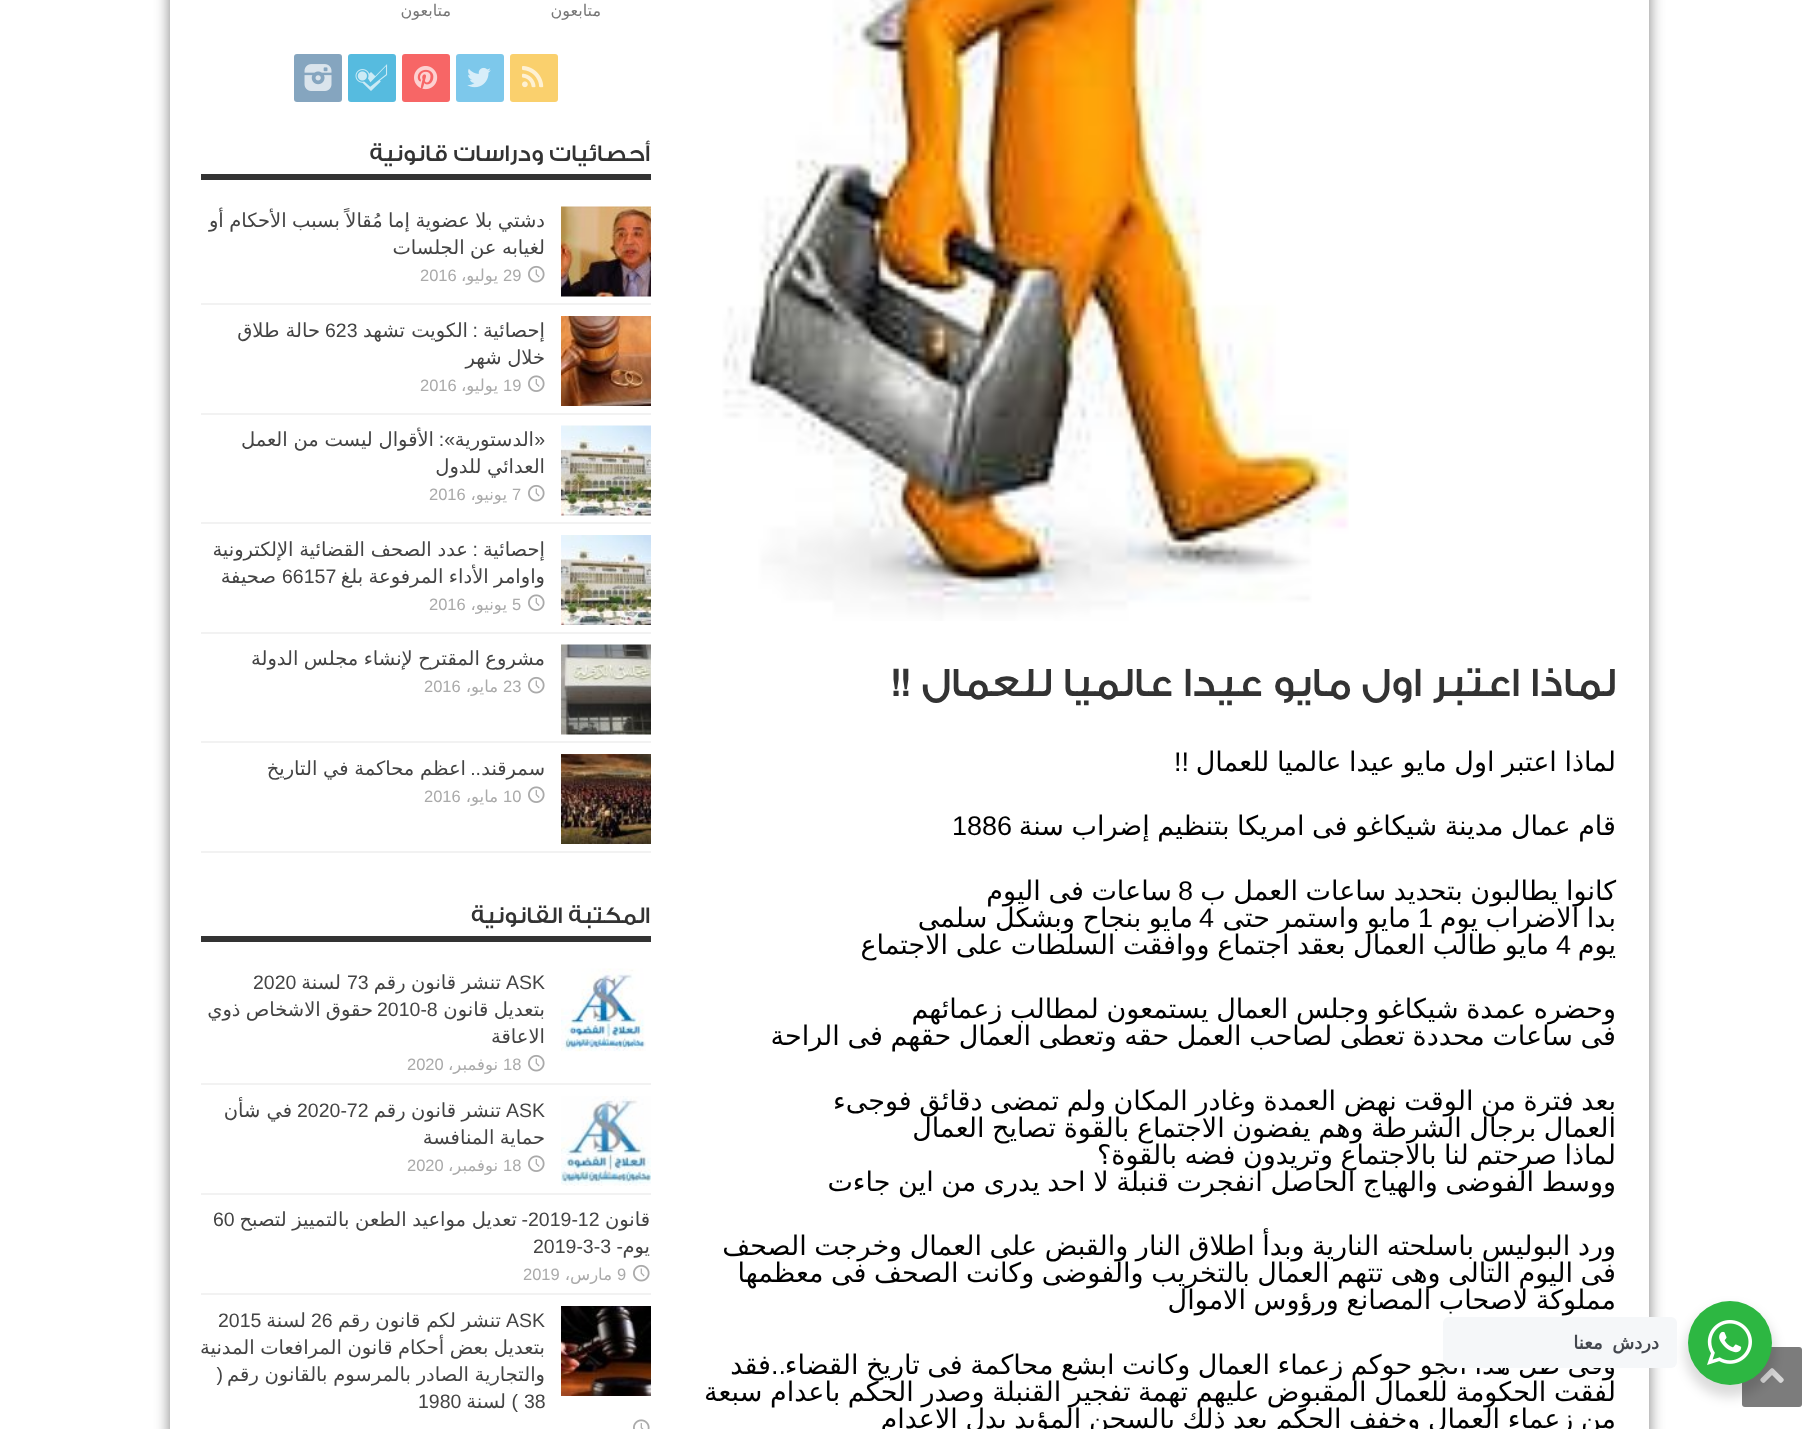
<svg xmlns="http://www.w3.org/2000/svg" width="1816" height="1429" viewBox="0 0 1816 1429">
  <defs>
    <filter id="blur1" x="-50%" y="-200%" width="200%" height="500%"><feGaussianBlur stdDeviation="7.5"/></filter>
    <filter id="blur2" x="-50%" y="-200%" width="200%" height="500%"><feGaussianBlur stdDeviation="6"/></filter>
  </defs>
  <rect width="100%" height="100%" fill="#ffffff"/>
  <rect x="170" y="-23" width="1479" height="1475" fill="#000000" fill-opacity="0.5" filter="url(#blur1)"/>
  <rect x="170" y="0" width="1479" height="1429" fill="#ffffff"/>
  <image x="722" y="0" width="627" height="621" href="img1.png"/>
  <text x="1616" y="696" font-family="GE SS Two" font-size="42" font-weight="500" direction="rtl" fill="#333333">لماذا اعتبر اول مايو عيدا عالميا للعمال !!</text>
  <text x="1616" y="771" word-spacing="-1" font-family="DejaVu Sans" font-size="27" direction="rtl" fill="#000000">لماذا اعتبر اول مايو عيدا عالميا للعمال</text>
  <text x="1189" y="771" font-family="Liberation Sans" font-size="27" direction="rtl" fill="#000000">!!</text>
  <text x="1616" y="835" word-spacing="-1" font-family="DejaVu Sans" font-size="27" direction="rtl" fill="#000000">قام عمال مدينة شيكاغو فى امريكا بتنظيم إضراب سنة</text>
  <text x="952" y="835" font-family="Liberation Sans" font-size="27" fill="#000000">1886</text>
  <text x="1616" y="900" word-spacing="-1" font-family="DejaVu Sans" font-size="27" direction="rtl" fill="#000000">كانوا يطالبون بتحديد ساعات العمل ب</text>
  <text x="1178" y="900" font-family="Liberation Sans" font-size="27" fill="#000000">8</text>
  <text x="1172" y="900" word-spacing="-1" font-family="DejaVu Sans" font-size="27" direction="rtl" fill="#000000">ساعات فى اليوم</text>
  <text x="1616" y="927" word-spacing="-1" font-family="DejaVu Sans" font-size="27" direction="rtl" fill="#000000">بدا الاضراب يوم</text>
  <text x="1418" y="927" font-family="Liberation Sans" font-size="27" fill="#000000">1</text>
  <text x="1411" y="927" word-spacing="-1" font-family="DejaVu Sans" font-size="27" direction="rtl" fill="#000000">مايو واستمر حتى</text>
  <text x="1199" y="927" font-family="Liberation Sans" font-size="27" fill="#000000">4</text>
  <text x="1193" y="927" word-spacing="-1" font-family="DejaVu Sans" font-size="27" direction="rtl" fill="#000000">مايو بنجاح وبشكل سلمى</text>
  <text x="1616" y="954" font-family="DejaVu Sans" font-size="27" direction="rtl" fill="#000000">يوم</text>
  <text x="1556" y="954" font-family="Liberation Sans" font-size="27" fill="#000000">4</text>
  <text x="1549" y="954" word-spacing="-1" font-family="DejaVu Sans" font-size="27" direction="rtl" fill="#000000">مايو طالب العمال بعقد اجتماع ووافقت السلطات على الاجتماع</text>
  <text x="1616" y="1018" word-spacing="-1" font-family="DejaVu Sans" font-size="27" direction="rtl" fill="#000000">وحضره عمدة شيكاغو وجلس العمال يستمعون لمطالب زعمائهم</text>
  <text x="1616" y="1045" word-spacing="-1" font-family="DejaVu Sans" font-size="27" direction="rtl" fill="#000000">فى ساعات محددة تعطى لصاحب العمل حقه وتعطى العمال حقهم فى الراحة</text>
  <text x="1616" y="1110" word-spacing="-1" font-family="DejaVu Sans" font-size="27" direction="rtl" fill="#000000">بعد فترة من الوقت نهض العمدة وغادر المكان ولم تمضى دقائق فوجىء</text>
  <text x="1616" y="1137" word-spacing="-1" font-family="DejaVu Sans" font-size="27" direction="rtl" fill="#000000">العمال برجال الشرطة وهم يفضون الاجتماع بالقوة تصايح العمال</text>
  <text x="1616" y="1164" word-spacing="-1" font-family="DejaVu Sans" font-size="27" direction="rtl" fill="#000000">لماذا صرحتم لنا بالاجتماع وتريدون فضه بالقوة؟</text>
  <text x="1616" y="1191" word-spacing="-1" font-family="DejaVu Sans" font-size="27" direction="rtl" fill="#000000">ووسط الفوضى والهياج الحاصل انفجرت قنبلة لا احد يدرى من اين جاءت</text>
  <text x="1616" y="1255" word-spacing="-1" font-family="DejaVu Sans" font-size="27" direction="rtl" fill="#000000">ورد البوليس باسلحته النارية وبدأ اطلاق النار والقبض على العمال وخرجت الصحف</text>
  <text x="1616" y="1282" word-spacing="-1" font-family="DejaVu Sans" font-size="27" direction="rtl" fill="#000000">فى اليوم التالى وهى تتهم العمال بالتخريب والفوضى وكانت الصحف فى معظمها</text>
  <text x="1616" y="1309" word-spacing="-1" font-family="DejaVu Sans" font-size="27" direction="rtl" fill="#000000">مملوكة لاصحاب المصانع ورؤوس الاموال</text>
  <text x="1616" y="1374" word-spacing="-1" font-family="DejaVu Sans" font-size="27" direction="rtl" fill="#000000">وفى ظل هذا الجو حوكم زعماء العمال وكانت ابشع محاكمة فى تاريخ القضاء</text>
  <text x="786" y="1374" font-family="Liberation Sans" font-size="27" direction="rtl" fill="#000000">..</text>
  <text x="771" y="1374" font-family="DejaVu Sans" font-size="27" direction="rtl" fill="#000000">فقد</text>
  <text x="1616" y="1401" word-spacing="-1" font-family="DejaVu Sans" font-size="27" direction="rtl" fill="#000000">لفقت الحكومة للعمال المقبوض عليهم تهمة تفجير القنبلة وصدر الحكم باعدام سبعة</text>
  <text x="1616" y="1428" word-spacing="-1" font-family="DejaVu Sans" font-size="27" direction="rtl" fill="#000000">من زعماء العمال وخفف الحكم بعد ذلك بالسجن المؤبد بدل الاعدام</text>
  <text x="601" y="16" font-family="DejaVu Sans" font-size="16" direction="rtl" fill="#777777">متابعون</text>
  <text x="451" y="16" font-family="DejaVu Sans" font-size="16" direction="rtl" fill="#777777">متابعون</text>
  <rect x="510" y="54" width="48" height="48" rx="3" fill="#fad06d"/>
  <image x="522" y="66" width="22" height="22" href="img2.png"/>
  <rect x="456" y="54" width="48" height="48" rx="3" fill="#7dc8eb"/>
  <image x="467" y="67" width="24" height="21" href="img3.png"/>
  <rect x="402" y="54" width="48" height="48" rx="3" fill="#f76666"/>
  <image x="414" y="66" width="24" height="24" href="img4.png"/>
  <rect x="348" y="54" width="48" height="48" rx="3" fill="#56bbdf"/>
  <image x="355" y="64" width="33" height="27" href="img5.png"/>
  <rect x="294" y="54" width="48" height="48" rx="3" fill="#85a5bf"/>
  <image x="304" y="64" width="28" height="27" href="img6.png"/>
  <rect x="201" y="174" width="450" height="6" fill="#333333"/>
  <text x="650" y="161" font-family="GE SS Two" font-size="24" font-weight="500" direction="rtl" fill="#333333">أحصائيات ودراسات قانونية</text>
  <rect x="201" y="303" width="450" height="2" fill="#f2f2f2"/>
  <image x="561" y="206" width="90" height="91" href="img7.png"/>
  <text x="545" y="227" word-spacing="-0.75" font-family="DejaVu Sans" font-size="19.5" direction="rtl" fill="#444444">دشتي بلا عضوية إما مُقالاً بسبب الأحكام أو</text>
  <text x="545" y="254" word-spacing="-0.75" font-family="DejaVu Sans" font-size="19.5" direction="rtl" fill="#444444">لغيابه عن الجلسات</text>
  <image x="528" y="265" width="17" height="18" href="img8.png"/>
  <text x="503" y="281" font-family="Liberation Sans" font-size="16.5" fill="#aaaaaa">29</text>
  <text x="498" y="281" font-family="DejaVu Sans" font-size="16.5" direction="rtl" fill="#aaaaaa">يوليو،</text>
  <text x="420" y="281" font-family="Liberation Sans" font-size="16.5" fill="#aaaaaa">2016</text>
  <rect x="201" y="413" width="450" height="2" fill="#f2f2f2"/>
  <image x="561" y="316" width="90" height="90" href="img9.png"/>
  <text x="545" y="337" font-family="DejaVu Sans" font-size="19.5" direction="rtl" fill="#444444">إحصائية</text>
  <text x="478" y="337" font-family="Liberation Sans" font-size="19.5" direction="rtl" fill="#444444">:</text>
  <text x="468" y="337" font-family="DejaVu Sans" font-size="19.5" direction="rtl" fill="#444444">الكويت تشهد</text>
  <text x="325" y="337" font-family="Liberation Sans" font-size="19.5" fill="#444444">623</text>
  <text x="320" y="337" font-family="DejaVu Sans" font-size="19.5" direction="rtl" fill="#444444">حالة طلاق</text>
  <text x="545" y="364" word-spacing="-0.75" font-family="DejaVu Sans" font-size="19.5" direction="rtl" fill="#444444">خلال شهر</text>
  <image x="528" y="375" width="17" height="17" href="img10.png"/>
  <text x="503" y="391" font-family="Liberation Sans" font-size="16.5" fill="#aaaaaa">19</text>
  <text x="498" y="391" font-family="DejaVu Sans" font-size="16.5" direction="rtl" fill="#aaaaaa">يوليو،</text>
  <text x="420" y="391" font-family="Liberation Sans" font-size="16.5" fill="#aaaaaa">2016</text>
  <rect x="201" y="522" width="450" height="2" fill="#f2f2f2"/>
  <image x="561" y="425" width="90" height="91" href="img11.png"/>
  <text x="545" y="446" font-family="Liberation Sans" font-size="19.5" direction="rtl" fill="#444444">«</text>
  <text x="534" y="446" font-family="DejaVu Sans" font-size="19.5" direction="rtl" fill="#444444">الدستورية</text>
  <text x="455" y="446" font-family="Liberation Sans" font-size="19.5" direction="rtl" fill="#444444">»:</text>
  <text x="434" y="446" word-spacing="-0.5" font-family="DejaVu Sans" font-size="19.5" direction="rtl" fill="#444444">الأقوال ليست من العمل</text>
  <text x="545" y="473" word-spacing="-0.75" font-family="DejaVu Sans" font-size="19.5" direction="rtl" fill="#444444">العدائي للدول</text>
  <image x="528" y="484" width="17" height="18" href="img8.png"/>
  <text x="512" y="500" font-family="Liberation Sans" font-size="16.5" fill="#aaaaaa">7</text>
  <text x="507" y="500" font-family="DejaVu Sans" font-size="16.5" direction="rtl" fill="#aaaaaa">يونيو،</text>
  <text x="429" y="500" font-family="Liberation Sans" font-size="16.5" fill="#aaaaaa">2016</text>
  <rect x="201" y="632" width="450" height="2" fill="#f2f2f2"/>
  <image x="561" y="535" width="90" height="90" href="img12.png"/>
  <text x="545" y="556" font-family="DejaVu Sans" font-size="19.5" direction="rtl" fill="#444444">إحصائية</text>
  <text x="478" y="556" font-family="Liberation Sans" font-size="19.5" direction="rtl" fill="#444444">:</text>
  <text x="468" y="556" word-spacing="-0.5" font-family="DejaVu Sans" font-size="19.5" direction="rtl" fill="#444444">عدد الصحف القضائية الإلكترونية</text>
  <text x="545" y="583" word-spacing="-0.75" font-family="DejaVu Sans" font-size="19.5" direction="rtl" fill="#444444">واوامر الأداء المرفوعة بلغ</text>
  <text x="282" y="583" font-family="Liberation Sans" font-size="19.5" fill="#444444">66157</text>
  <text x="276" y="583" font-family="DejaVu Sans" font-size="19.5" direction="rtl" fill="#444444">صحيفة</text>
  <image x="528" y="594" width="17" height="17" href="img10.png"/>
  <text x="512" y="610" font-family="Liberation Sans" font-size="16.5" fill="#aaaaaa">5</text>
  <text x="507" y="610" font-family="DejaVu Sans" font-size="16.5" direction="rtl" fill="#aaaaaa">يونيو،</text>
  <text x="429" y="610" font-family="Liberation Sans" font-size="16.5" fill="#aaaaaa">2016</text>
  <rect x="201" y="741" width="450" height="2" fill="#f2f2f2"/>
  <image x="561" y="644" width="90" height="91" href="img13.png"/>
  <text x="545" y="665" word-spacing="-0.75" font-family="DejaVu Sans" font-size="19.5" direction="rtl" fill="#444444">مشروع المقترح لإنشاء مجلس الدولة</text>
  <image x="528" y="676" width="17" height="18" href="img8.png"/>
  <text x="503" y="692" font-family="Liberation Sans" font-size="16.5" fill="#aaaaaa">23</text>
  <text x="498" y="692" font-family="DejaVu Sans" font-size="16.5" direction="rtl" fill="#aaaaaa">مايو،</text>
  <text x="424" y="692" font-family="Liberation Sans" font-size="16.5" fill="#aaaaaa">2016</text>
  <rect x="201" y="851" width="450" height="2" fill="#f2f2f2"/>
  <image x="561" y="754" width="90" height="90" href="img14.png"/>
  <text x="545" y="775" font-family="DejaVu Sans" font-size="19.5" direction="rtl" fill="#444444">سمرقند</text>
  <text x="481" y="775" font-family="Liberation Sans" font-size="19.5" direction="rtl" fill="#444444">..</text>
  <text x="466" y="775" word-spacing="-0.5" font-family="DejaVu Sans" font-size="19.5" direction="rtl" fill="#444444">اعظم محاكمة في التاريخ</text>
  <image x="528" y="786" width="17" height="17" href="img10.png"/>
  <text x="503" y="802" font-family="Liberation Sans" font-size="16.5" fill="#aaaaaa">10</text>
  <text x="498" y="802" font-family="DejaVu Sans" font-size="16.5" direction="rtl" fill="#aaaaaa">مايو،</text>
  <text x="424" y="802" font-family="Liberation Sans" font-size="16.5" fill="#aaaaaa">2016</text>
  <rect x="201" y="936" width="450" height="6" fill="#333333"/>
  <text x="650" y="923" font-family="GE SS Two" font-size="24" font-weight="500" direction="rtl" fill="#333333">المكتبة القانونية</text>
  <rect x="201" y="1083" width="450" height="2" fill="#f2f2f2"/>
  <image x="561" y="968" width="85" height="84" href="img15.png"/>
  <text x="506" y="989" font-family="Liberation Sans" font-size="19.5" fill="#444444">ASK</text>
  <text x="501" y="989" word-spacing="-0.75" font-family="DejaVu Sans" font-size="19.5" direction="rtl" fill="#444444">تنشر قانون رقم</text>
  <text x="347" y="989" font-family="Liberation Sans" font-size="19.5" fill="#444444">73</text>
  <text x="341" y="989" font-family="DejaVu Sans" font-size="19.5" direction="rtl" fill="#444444">لسنة</text>
  <text x="253" y="989" font-family="Liberation Sans" font-size="19.5" fill="#444444">2020</text>
  <text x="545" y="1016" word-spacing="-0.75" font-family="DejaVu Sans" font-size="19.5" direction="rtl" fill="#444444">بتعديل قانون</text>
  <text x="377" y="1016" font-family="Liberation Sans" font-size="19.5" fill="#444444">2010-8</text>
  <text x="373" y="1016" word-spacing="-1" font-family="DejaVu Sans" font-size="19.5" direction="rtl" fill="#444444">حقوق الاشخاص ذوي</text>
  <text x="545" y="1043" font-family="DejaVu Sans" font-size="19.5" direction="rtl" fill="#444444">الاعاقة</text>
  <image x="528" y="1054" width="17" height="18" href="img8.png"/>
  <text x="503" y="1070" font-family="Liberation Sans" font-size="16.5" fill="#aaaaaa">18</text>
  <text x="498" y="1070" font-family="DejaVu Sans" font-size="16.5" direction="rtl" fill="#aaaaaa">نوفمبر،</text>
  <text x="407" y="1070" font-family="Liberation Sans" font-size="16.5" fill="#aaaaaa">2020</text>
  <rect x="201" y="1193" width="450" height="2" fill="#f2f2f2"/>
  <image x="561" y="1096" width="90" height="90" href="img16.png"/>
  <text x="506" y="1117" font-family="Liberation Sans" font-size="19.5" fill="#444444">ASK</text>
  <text x="501" y="1117" word-spacing="-0.75" font-family="DejaVu Sans" font-size="19.5" direction="rtl" fill="#444444">تنشر قانون رقم</text>
  <text x="297" y="1117" font-family="Liberation Sans" font-size="19.5" fill="#444444">2020-72</text>
  <text x="292" y="1117" font-family="DejaVu Sans" font-size="19.5" direction="rtl" fill="#444444">في شأن</text>
  <text x="545" y="1144" word-spacing="-0.75" font-family="DejaVu Sans" font-size="19.5" direction="rtl" fill="#444444">حماية المنافسة</text>
  <image x="528" y="1155" width="17" height="17" href="img10.png"/>
  <text x="503" y="1171" font-family="Liberation Sans" font-size="16.5" fill="#aaaaaa">18</text>
  <text x="498" y="1171" font-family="DejaVu Sans" font-size="16.5" direction="rtl" fill="#aaaaaa">نوفمبر،</text>
  <text x="407" y="1171" font-family="Liberation Sans" font-size="16.5" fill="#aaaaaa">2020</text>
  <rect x="201" y="1293" width="450" height="2" fill="#f2f2f2"/>
  <text x="650" y="1226" font-family="DejaVu Sans" font-size="19.5" direction="rtl" fill="#444444">قانون</text>
  <text x="528" y="1226" font-family="Liberation Sans" font-size="19.5" fill="#444444">2019-12</text>
  <text x="528" y="1226" font-family="Liberation Sans" font-size="19.5" direction="rtl" fill="#444444">-</text>
  <text x="517" y="1226" word-spacing="-0.5" font-family="DejaVu Sans" font-size="19.5" direction="rtl" fill="#444444">تعديل مواعيد الطعن بالتمييز لتصبح</text>
  <text x="213" y="1226" font-family="Liberation Sans" font-size="19.5" fill="#444444">60</text>
  <text x="650" y="1253" font-family="DejaVu Sans" font-size="19.5" direction="rtl" fill="#444444">يوم</text>
  <text x="623" y="1253" font-family="Liberation Sans" font-size="19.5" direction="rtl" fill="#444444">-</text>
  <text x="533" y="1253" font-family="Liberation Sans" font-size="19.5" fill="#444444">2019-3-3</text>
  <image x="633" y="1264" width="17" height="18" href="img8.png"/>
  <text x="617" y="1280" font-family="Liberation Sans" font-size="16.5" fill="#aaaaaa">9</text>
  <text x="612" y="1280" font-family="DejaVu Sans" font-size="16.5" direction="rtl" fill="#aaaaaa">مارس،</text>
  <text x="523" y="1280" font-family="Liberation Sans" font-size="16.5" fill="#aaaaaa">2019</text>
  <image x="561" y="1306" width="90" height="90" href="img17.png"/>
  <text x="506" y="1327" font-family="Liberation Sans" font-size="19.5" fill="#444444">ASK</text>
  <text x="501" y="1327" word-spacing="-0.5" font-family="DejaVu Sans" font-size="19.5" direction="rtl" fill="#444444">تنشر لكم قانون رقم</text>
  <text x="311" y="1327" font-family="Liberation Sans" font-size="19.5" fill="#444444">26</text>
  <text x="306" y="1327" font-family="DejaVu Sans" font-size="19.5" direction="rtl" fill="#444444">لسنة</text>
  <text x="218" y="1327" font-family="Liberation Sans" font-size="19.5" fill="#444444">2015</text>
  <text x="545" y="1354" word-spacing="-0.75" font-family="DejaVu Sans" font-size="19.5" direction="rtl" fill="#444444">بتعديل بعض أحكام قانون المرافعات المدنية</text>
  <text x="545" y="1381" font-family="DejaVu Sans" font-size="19.5" direction="rtl" fill="#444444">والتجارية</text>
  <text x="469" y="1381" word-spacing="-0.5" font-family="DejaVu Sans" font-size="19.5" direction="rtl" fill="#444444">الصادر بالمرسوم بالقانون رقم</text>
  <text x="223" y="1381" font-family="Liberation Sans" font-size="19.5" direction="rtl" fill="#444444">(</text>
  <text x="524" y="1408" font-family="Liberation Sans" font-size="19.5" fill="#444444">38</text>
  <text x="518" y="1408" font-family="Liberation Sans" font-size="19.5" direction="rtl" fill="#444444">)</text>
  <text x="506" y="1408" font-family="DejaVu Sans" font-size="19.5" direction="rtl" fill="#444444">لسنة</text>
  <text x="418" y="1408" font-family="Liberation Sans" font-size="19.5" fill="#444444">1980</text>
  <image x="633" y="1419" width="17" height="10" href="img18.png"/>
  <rect x="1742" y="1347" width="60" height="60" rx="3" fill="#7c7c7c"/>
  <image x="1760" y="1368" width="24" height="15" href="img20.png"/>
  <rect x="1685" y="1307" width="90" height="90" rx="45" fill="#000000" fill-opacity="0.14" filter="url(#blur2)"/>
  <circle cx="1730" cy="1343" r="42" fill="#2db742"/>
  <image x="1707" y="1320" width="45" height="45" href="img19.png"/>
  <rect x="1443" y="1317" width="234" height="51" rx="6" fill="#f5f7f9"/>
  <text x="1659" y="1349" word-spacing="4" font-family="DejaVu Sans" font-size="18" font-weight="bold" letter-spacing="-0.5" direction="rtl" fill="#43474e">دردش معنا</text>
</svg>
